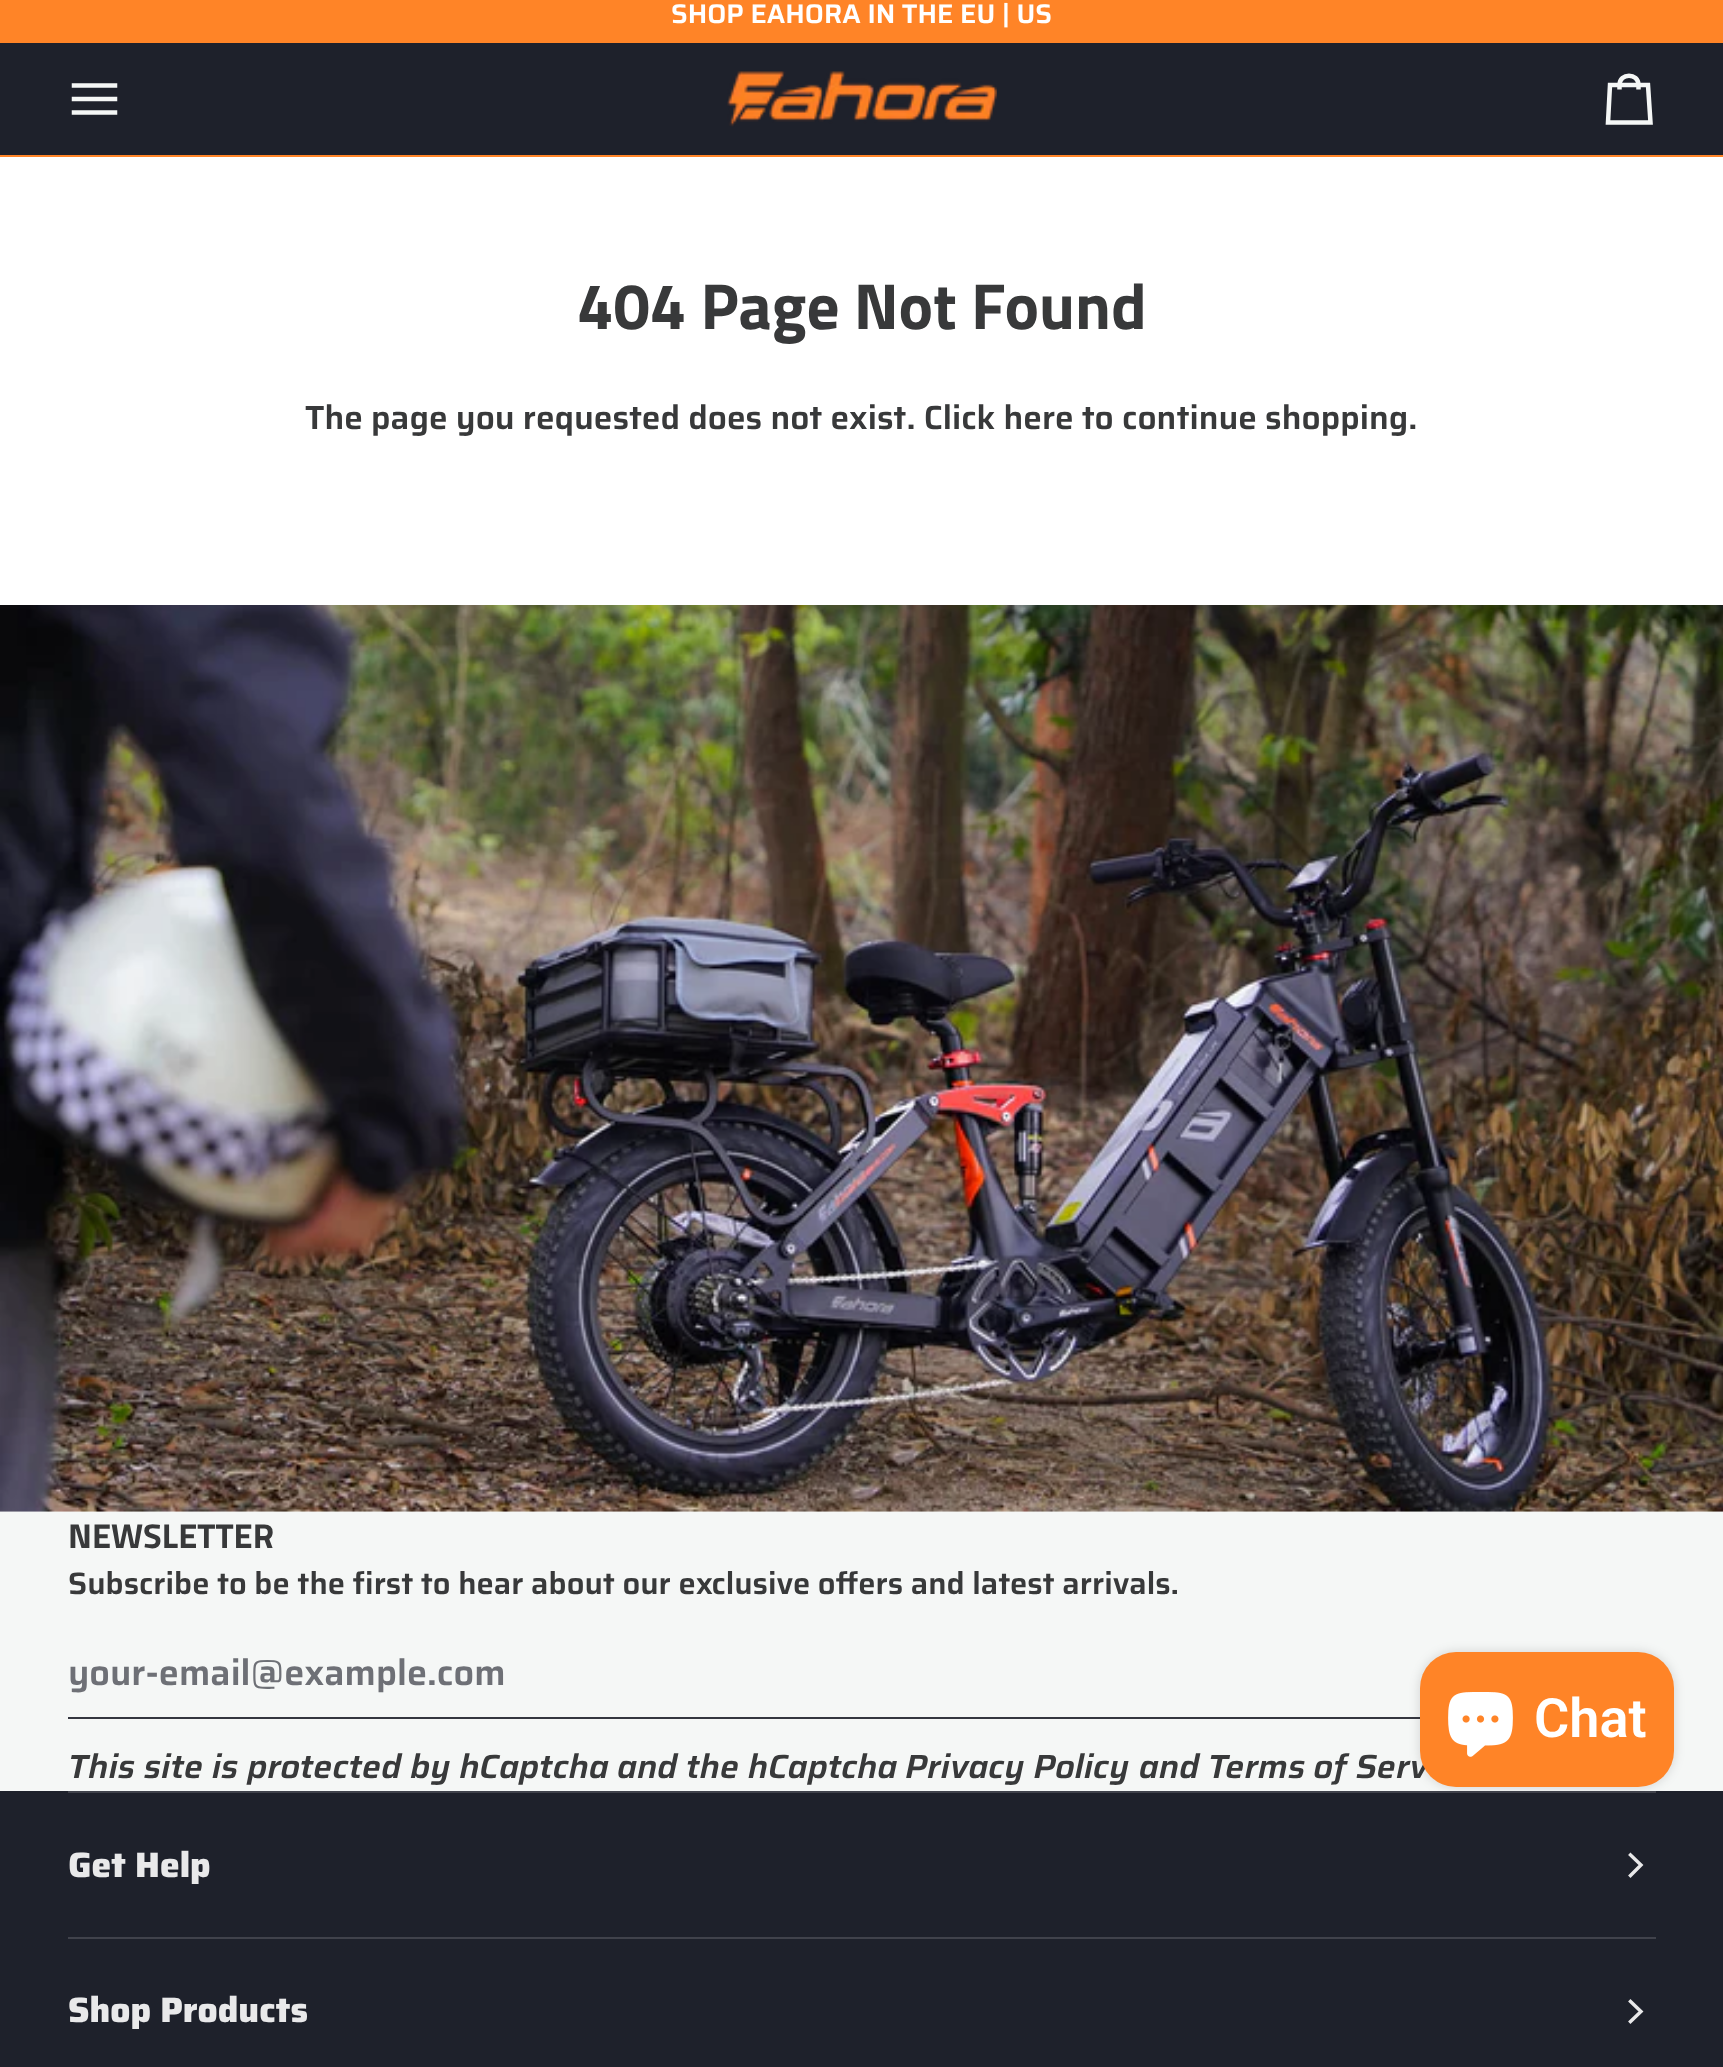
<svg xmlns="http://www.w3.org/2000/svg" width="1723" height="2067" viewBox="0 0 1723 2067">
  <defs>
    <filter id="blur1" x="-50%" y="-200%" width="200%" height="500%"><feGaussianBlur stdDeviation="5.5"/></filter>
  </defs>
  <rect width="100%" height="100%" fill="#ffffff"/>
  <rect x="0" y="43" width="1723" height="112" fill="#1e212b"/>
  <rect x="0" y="155" width="1723" height="2" fill="#ff8427"/>
  <rect x="0" y="0" width="1723" height="43" fill="#ff8427"/>
  <text x="671" y="23" font-family="Saira" font-size="27" font-weight="600" fill="#ffffff">SHOP EAHORA IN THE EU</text>
  <text x="1002" y="23" font-family="Saira" font-size="27" font-weight="600" fill="#ffffff">| US</text>
  <path d="M115 85.5H74M115 99H74M115 112.5H74" fill="none" stroke="#f5f7f6" stroke-width="4.5" stroke-linecap="square"/>
  <image x="727" y="71" width="270" height="56" href="img1.png"/>
  <path d="M1638.5 89.5V85H1648L1650.5 122.5H1608L1610 85H1619.5C1619.5 72.5 1638.5 72.5 1638.5 85H1619.5V89.5" fill="none" stroke="#f5f7f6" stroke-width="4.5"/>
  <text x="577" y="329" font-family="Titillium Web" font-size="65" font-weight="bold" fill="#38393a">404 Page Not Found</text>
  <text x="305" y="429" font-family="Saira" font-size="33.4" font-weight="600" fill="#38393a">The page you requested does not exist. Click here to continue shopping.</text>
  <rect x="0" y="1791" width="1723" height="276" fill="#1e212b"/>
  <rect x="0" y="1511" width="1723" height="280" fill="#f5f7f6"/>
  <image x="0" y="605" width="1723" height="907" href="img2.png"/>
  <text x="68" y="1548" font-family="Titillium Web" font-size="34.5" font-weight="bold" fill="#38393a">NEWSLETTER</text>
  <text x="68" y="1594" font-family="Saira" font-size="30.95" font-weight="600" fill="#38393a">Subscribe to be the first to hear about our exclusive offers and latest arrivals.</text>
  <rect x="68" y="1717" width="1352" height="2" fill="#34363f"/>
  <text x="68" y="1685" font-family="Saira" font-size="36" font-weight="600" fill="#6e7076">your-email@example.com</text>
  <text x="68" y="1778" font-family="Saira" font-size="33.4" font-weight="600" font-style="italic" fill="#38393a">This site is protected by hCaptcha and the hCaptcha</text>
  <text x="905" y="1778" font-family="Saira" font-size="33.4" font-weight="600" font-style="italic" fill="#38393a">Privacy Policy</text>
  <text x="1139" y="1778" font-family="Saira" font-size="33.4" font-weight="600" font-style="italic" fill="#38393a">and Terms of Serv</text>
  <rect x="68" y="1791" width="1588" height="2" fill="#40424b"/>
  <rect x="68" y="1937" width="1588" height="2" fill="#40424b"/>
  <text x="68" y="1877" font-family="Saira" font-size="35.25" font-weight="800" fill="#e9e9ea">Get Help</text>
  <path d="M1630.5 1875.5L1641 1865L1630.5 1855" fill="none" stroke="#e9e9ea" stroke-width="3.4" stroke-linecap="square"/>
  <text x="68" y="2022" font-family="Saira" font-size="35.25" font-weight="800" fill="#e9e9ea">Shop Products</text>
  <path d="M1630.5 2021.5L1641 2011.5L1630.5 2001.5" fill="none" stroke="#e9e9ea" stroke-width="3.4" stroke-linecap="square"/>
  <rect x="1420" y="1652" width="254" height="135" rx="36" fill="#000000" fill-opacity="0.15" filter="url(#blur1)"/>
  <rect x="1420" y="1652" width="254" height="135" rx="36" fill="#ff8427"/>
  <image x="1448" y="1692" width="65" height="65" href="img3.png"/>
  <text x="1534" y="1737" font-family="Roboto" font-size="54" font-weight="600" fill="#ffffff">Chat</text>
</svg>
